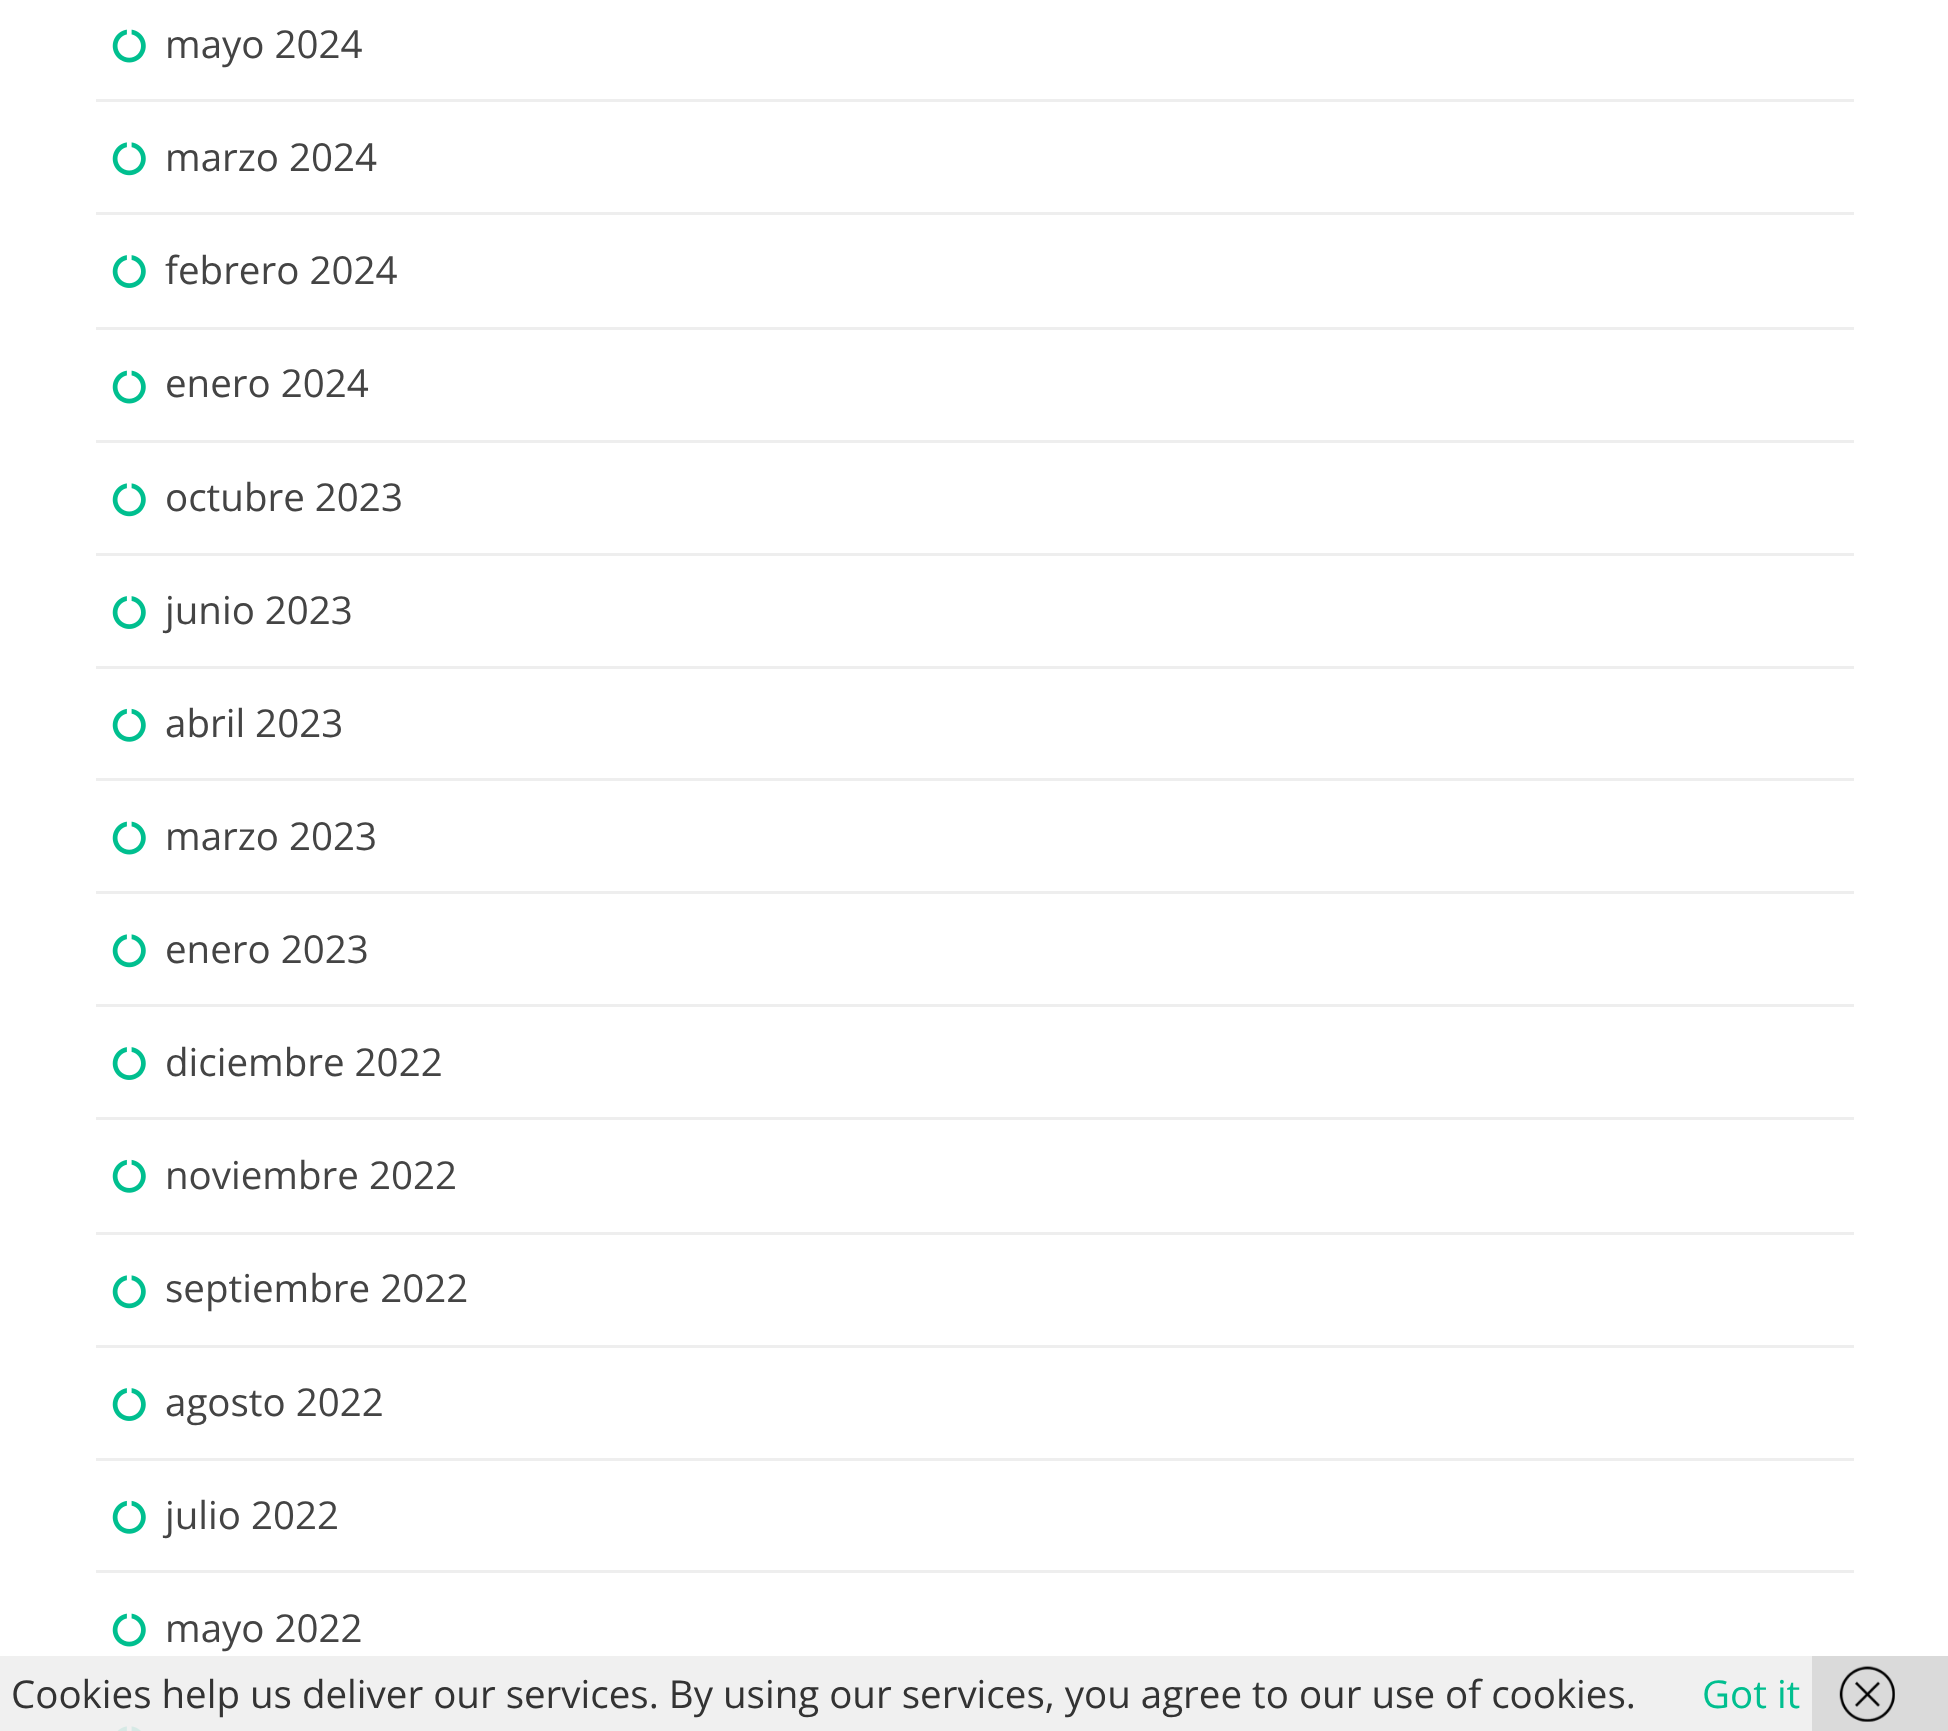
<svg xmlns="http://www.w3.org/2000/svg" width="1948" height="1731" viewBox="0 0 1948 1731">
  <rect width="100%" height="100%" fill="#ffffff"/>
  <rect x="0" y="1656" width="1812" height="75" fill="#f0f0f0"/>
  <rect x="96" y="99" width="1758" height="3" fill="#eeeeee"/>
  <image x="112" y="29" width="34" height="34" href="img1.png"/>
  <text x="165" y="58" font-family="Open Sans" font-size="38.5" fill="#444444">mayo 2024</text>
  <rect x="96" y="212" width="1758" height="3" fill="#eeeeee"/>
  <image x="112" y="142" width="34" height="34" href="img2.png"/>
  <text x="165" y="171" font-family="Open Sans" font-size="38.5" fill="#444444">marzo 2024</text>
  <rect x="96" y="327" width="1758" height="3" fill="#eeeeee"/>
  <image x="112" y="255" width="34" height="33" href="img3.png"/>
  <text x="165" y="284" font-family="Open Sans" font-size="38.5" fill="#444444">febrero 2024</text>
  <rect x="96" y="440" width="1758" height="3" fill="#eeeeee"/>
  <image x="112" y="370" width="34" height="34" href="img1.png"/>
  <text x="165" y="397" font-family="Open Sans" font-size="38.5" fill="#444444">enero 2024</text>
  <rect x="96" y="553" width="1758" height="3" fill="#eeeeee"/>
  <image x="112" y="483" width="34" height="34" href="img2.png"/>
  <text x="165" y="511" font-family="Open Sans" font-size="38.5" fill="#444444">octubre 2023</text>
  <rect x="96" y="666" width="1758" height="3" fill="#eeeeee"/>
  <image x="112" y="596" width="34" height="33" href="img3.png"/>
  <text x="165" y="624" font-family="Open Sans" font-size="38.5" fill="#444444">junio 2023</text>
  <rect x="96" y="778" width="1758" height="3" fill="#eeeeee"/>
  <image x="112" y="708" width="34" height="34" href="img4.png"/>
  <text x="165" y="737" font-family="Open Sans" font-size="38.5" fill="#444444">abril 2023</text>
  <rect x="96" y="891" width="1758" height="3" fill="#eeeeee"/>
  <image x="112" y="821" width="34" height="34" href="img1.png"/>
  <text x="165" y="850" font-family="Open Sans" font-size="38.5" fill="#444444">marzo 2023</text>
  <rect x="96" y="1004" width="1758" height="3" fill="#eeeeee"/>
  <image x="112" y="934" width="34" height="34" href="img2.png"/>
  <text x="165" y="963" font-family="Open Sans" font-size="38.5" fill="#444444">enero 2023</text>
  <rect x="96" y="1117" width="1758" height="3" fill="#eeeeee"/>
  <image x="112" y="1047" width="34" height="33" href="img3.png"/>
  <text x="165" y="1076" font-family="Open Sans" font-size="38.5" fill="#444444">diciembre 2022</text>
  <rect x="96" y="1232" width="1758" height="3" fill="#eeeeee"/>
  <image x="112" y="1159" width="34" height="34" href="img4.png"/>
  <text x="165" y="1189" font-family="Open Sans" font-size="38.5" fill="#444444">noviembre 2022</text>
  <rect x="96" y="1345" width="1758" height="3" fill="#eeeeee"/>
  <image x="112" y="1275" width="34" height="34" href="img2.png"/>
  <text x="165" y="1302" font-family="Open Sans" font-size="38.5" fill="#444444">septiembre 2022</text>
  <rect x="96" y="1458" width="1758" height="3" fill="#eeeeee"/>
  <image x="112" y="1388" width="34" height="33" href="img3.png"/>
  <text x="165" y="1416" font-family="Open Sans" font-size="38.5" fill="#444444">agosto 2022</text>
  <rect x="96" y="1570" width="1758" height="3" fill="#eeeeee"/>
  <image x="112" y="1500" width="34" height="34" href="img4.png"/>
  <text x="165" y="1529" font-family="Open Sans" font-size="38.5" fill="#444444">julio 2022</text>
  <image x="112" y="1613" width="34" height="34" href="img1.png"/>
  <text x="165" y="1642" font-family="Open Sans" font-size="38.5" fill="#444444">mayo 2022</text>
  <image x="117" y="1726" width="24" height="5" href="img5.png"/>
  <text x="11" y="1708" font-family="Open Sans" font-size="38.5" fill="#333333">Cookies help us deliver our services. By using our services, you agree to our use of cookies.</text>
  <text x="1702" y="1708" font-family="Open Sans" font-size="38.5" fill="#00bf8f">Got it</text>
  <rect x="1812" y="1656" width="136" height="75" fill="#dadada"/>
  <image x="1839" y="1665" width="56" height="57" href="img6.png"/>
</svg>
